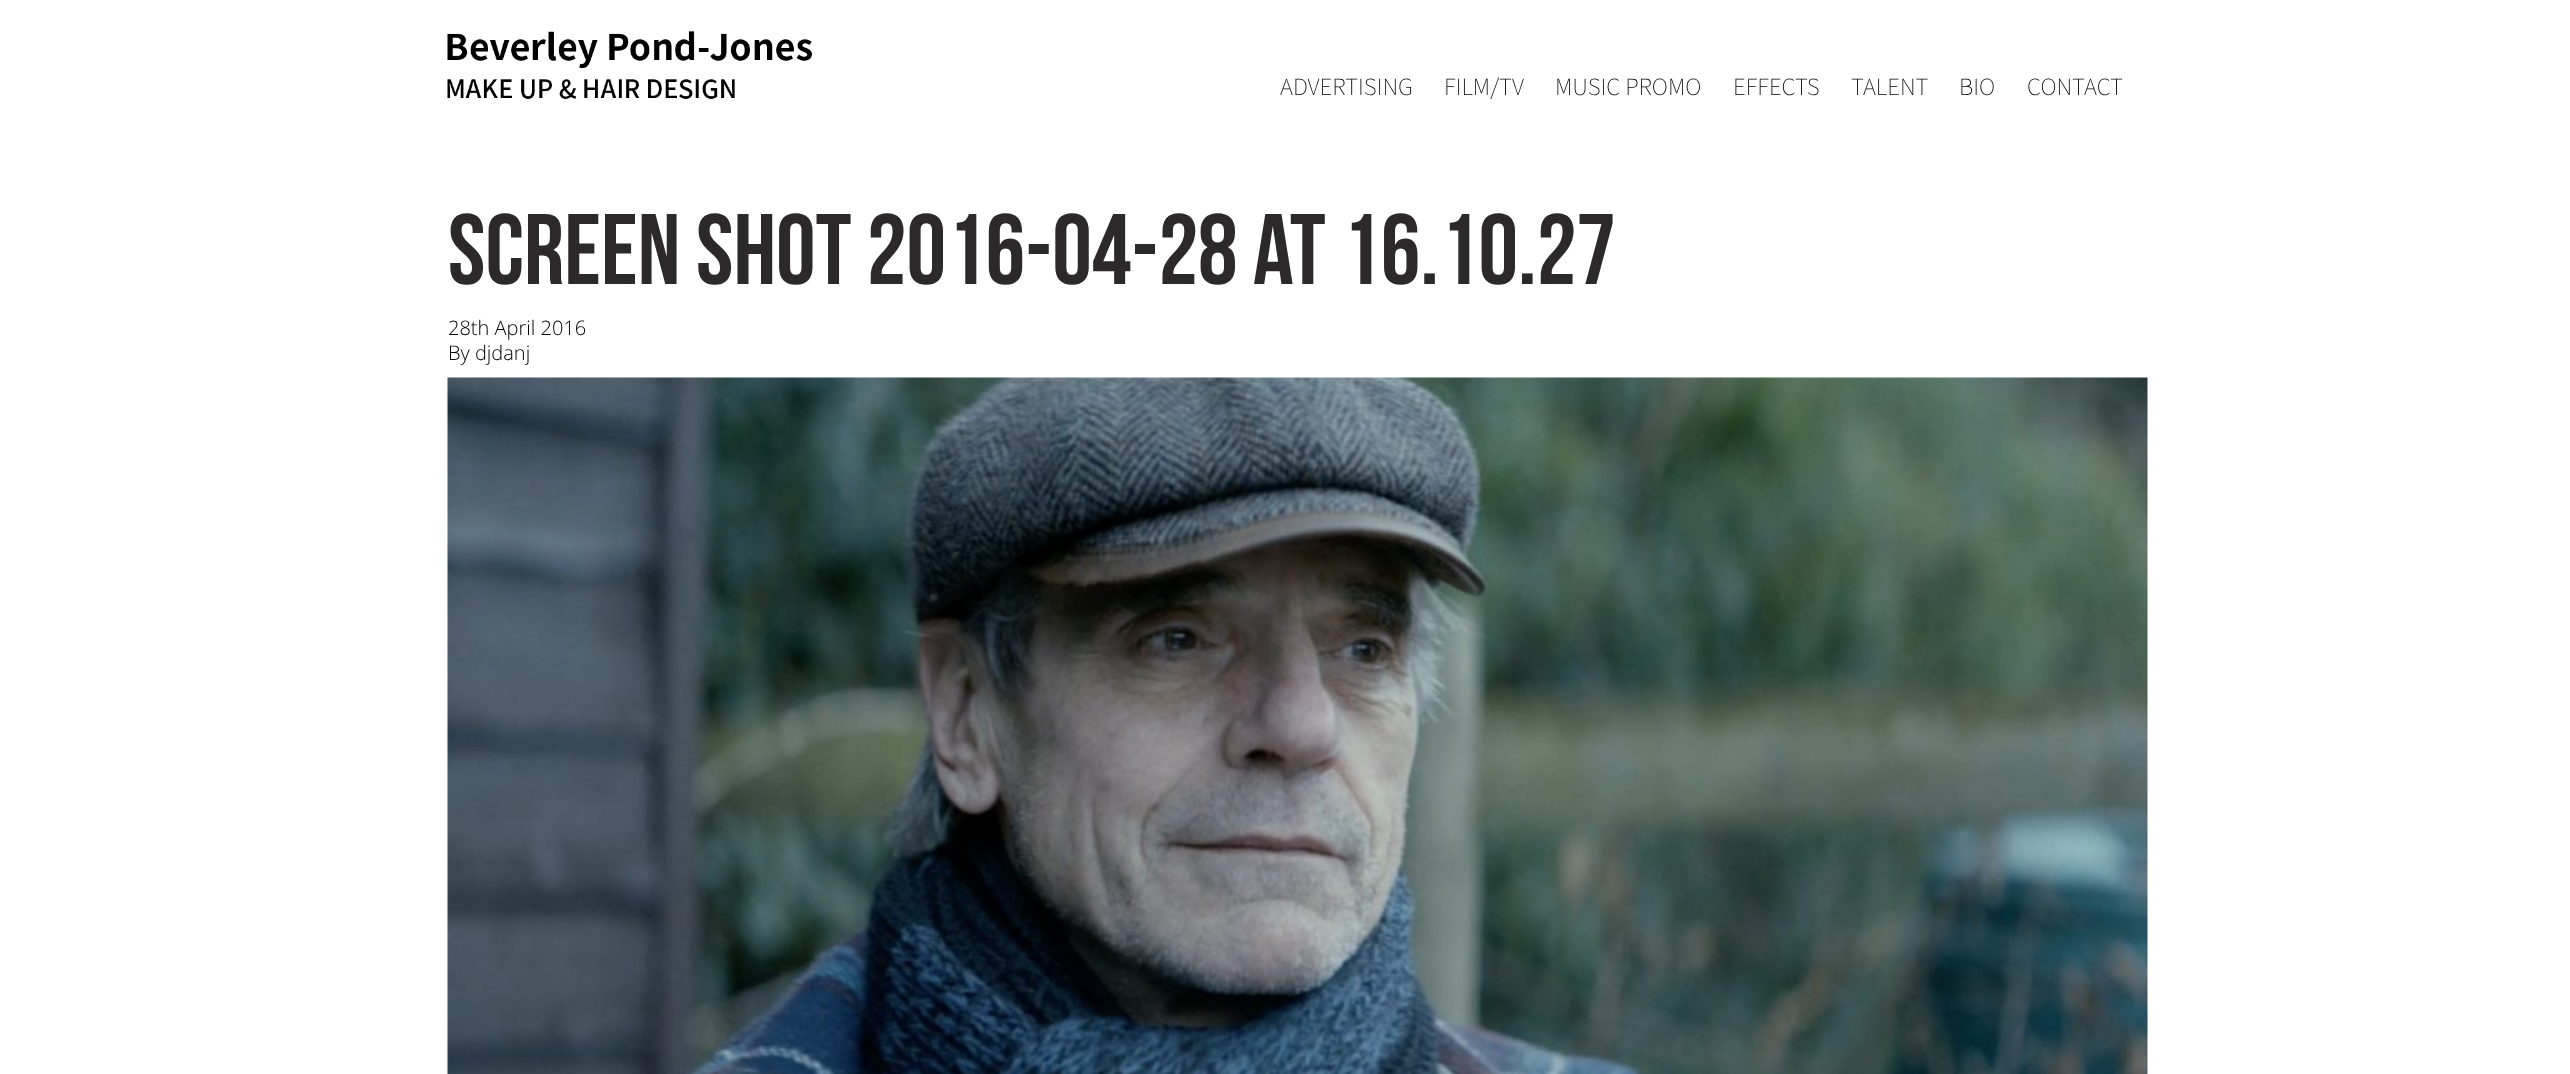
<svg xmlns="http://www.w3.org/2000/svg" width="2570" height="1074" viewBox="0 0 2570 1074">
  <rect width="100%" height="100%" fill="#ffffff"/>
  <image x="447" y="31" width="365" height="68" href="img1.png"/>
  <text x="1280" y="95" font-family="Noto Sans JP" font-size="22.5" font-weight="100" fill="#000000">ADVERTISING</text>
  <text x="1444" y="95" font-family="Noto Sans JP" font-size="22.5" font-weight="100" fill="#000000">FILM/TV</text>
  <text x="1555" y="95" font-family="Noto Sans JP" font-size="22.5" font-weight="100" fill="#000000">MUSIC PROMO</text>
  <text x="1733" y="95" font-family="Noto Sans JP" font-size="22.5" font-weight="100" fill="#000000">EFFECTS</text>
  <text x="1851" y="95" font-family="Noto Sans JP" font-size="22.5" font-weight="100" fill="#000000">TALENT</text>
  <text x="1959" y="95" font-family="Noto Sans JP" font-size="22.5" font-weight="100" fill="#000000">BIO</text>
  <text x="2027" y="95" font-family="Noto Sans JP" font-size="22.5" font-weight="100" fill="#000000">CONTACT</text>
  <text x="448" y="284" font-family="Bebas Neue" font-size="100" fill="#2b292a">Screen Shot 2016-04-28 at 16.10.27</text>
  <text x="448" y="335" font-family="Open Sans" font-size="20" font-weight="300" fill="#000000">28th April 2016</text>
  <text x="448" y="360" font-family="Open Sans" font-size="20" font-weight="300" fill="#000000">By djdanj</text>
  <image x="447" y="377" width="1701" height="697" href="img2.png"/>
</svg>
